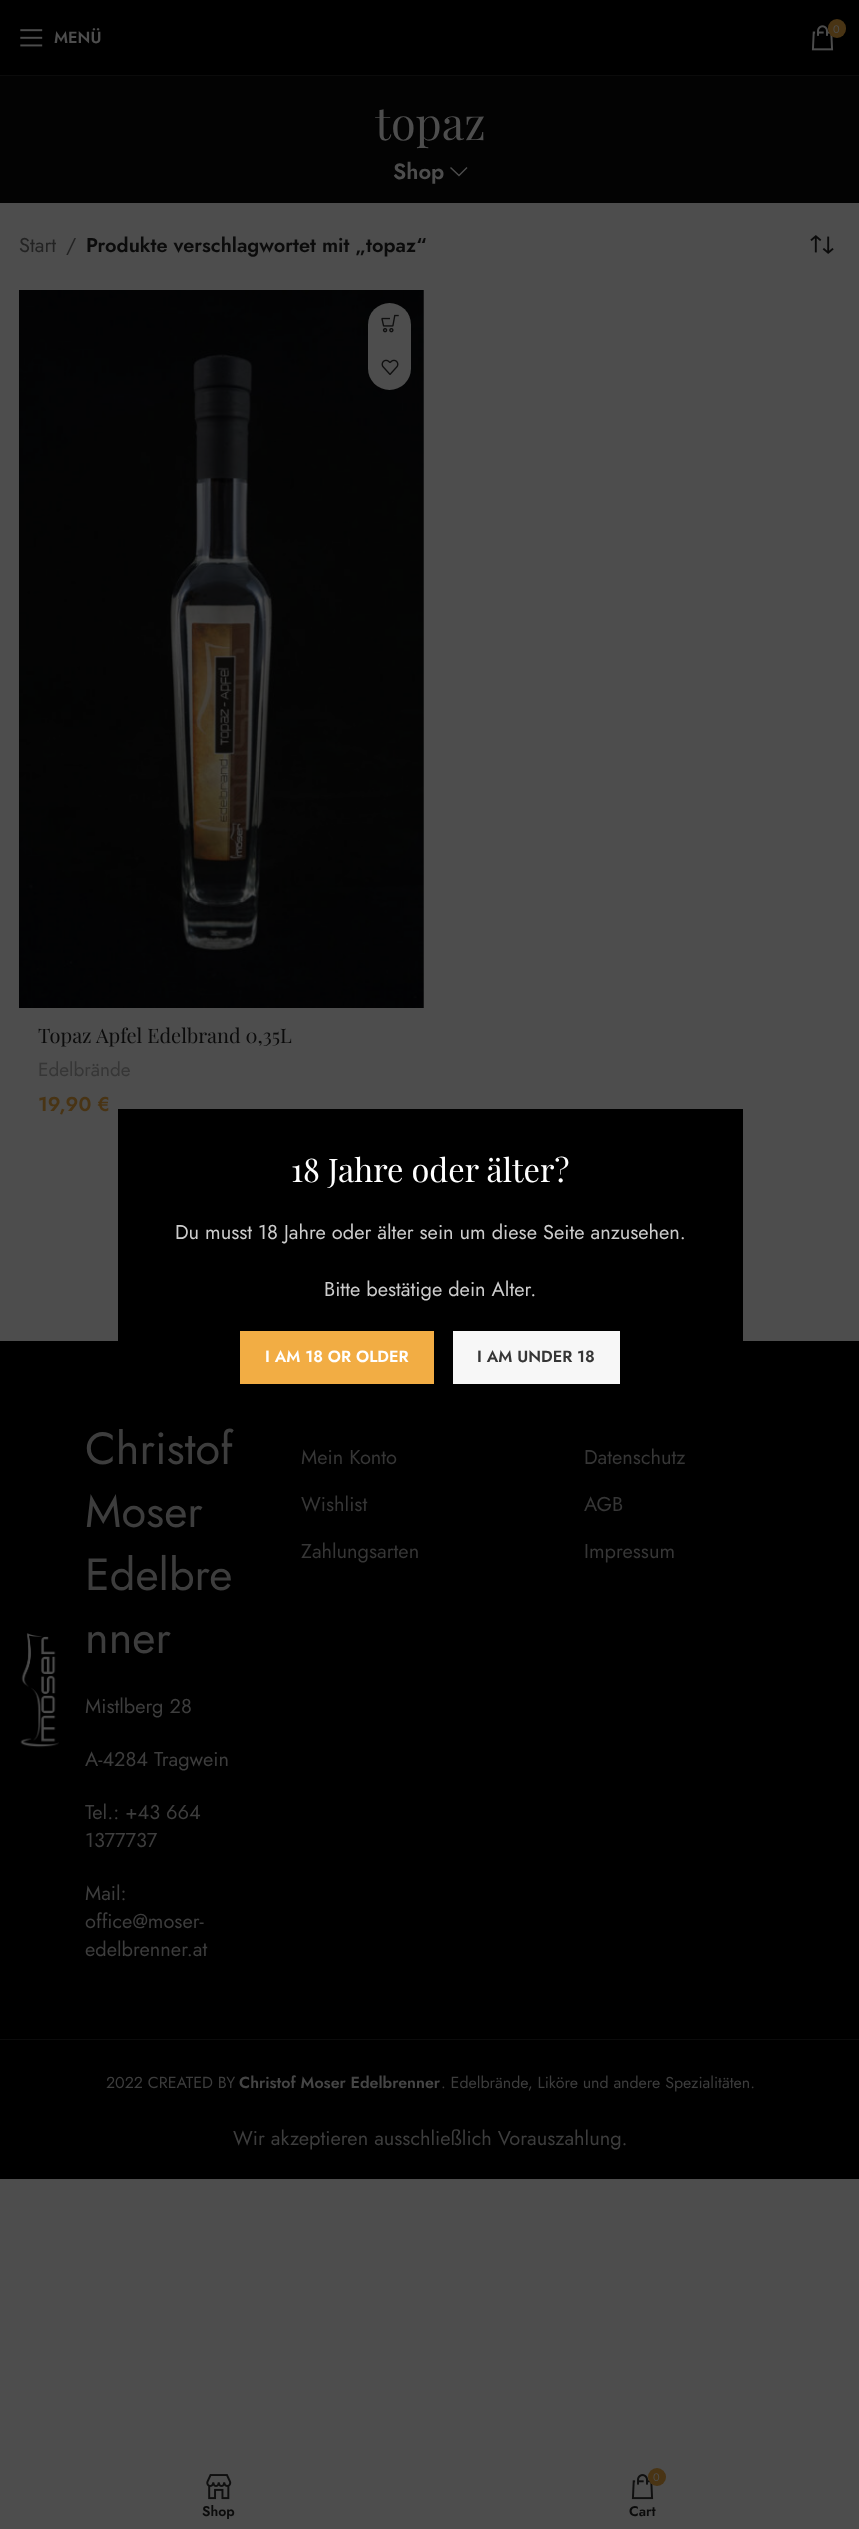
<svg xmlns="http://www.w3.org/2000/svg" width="859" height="2529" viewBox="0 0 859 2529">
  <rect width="100%" height="100%" fill="#4d4d4d"/>
  <rect x="0" y="0" width="859" height="75" fill="#000000"/>
  <rect x="0" y="75" width="859" height="1" fill="#0b0b0b"/>
  <image x="20" y="29" width="23" height="18" href="img1.png"/>
  <text x="54" y="43" font-family="Jost" font-size="16.25" font-weight="600" fill="#4d4d4d">MENÜ</text>
  <image x="811" y="25" width="23" height="26" href="img2.png"/>
  <rect x="828" y="19" width="18" height="19" rx="9" fill="#493414"/>
  <text x="833" y="33" font-family="Jost" font-size="11" fill="#4d4d4d">0</text>
  <rect x="0" y="76" width="859" height="127" fill="#030303"/>
  <text x="375" y="140" font-family="Playfair Display" font-size="45" fill="#4d4d4d">topaz</text>
  <text x="393" y="179" font-family="Jost" font-size="22" font-weight="600" fill="#4d4d4d">Shop</text>
  <path d="M466.5 167L459 174.5L451 167L450 168L459 176.5L467.5 168Z" fill="#4d4d4d"/>
  <text x="19" y="252" font-family="Jost" font-size="20" fill="#232323">Start</text>
  <text x="66" y="252" font-family="Jost" font-size="20" fill="#232323">/</text>
  <text x="86" y="252" font-family="Jost" font-size="20" font-weight="600" fill="#0b0b0b">Produkte verschlagwortet mit „topaz“</text>
  <image x="810" y="235" width="24" height="19" href="img3.png"/>
  <image x="19" y="290" width="405" height="718" href="img4.png"/>
  <rect x="368" y="303" width="43" height="87" rx="21.5" fill="#4d4d4d"/>
  <image x="381" y="314" width="18" height="19" href="img5.png"/>
  <image x="381" y="359" width="18" height="16" href="img6.png"/>
  <text x="38" y="1043" font-family="Playfair Display" font-size="20" fill="#0b0b0b">Topaz Apfel Edelbrand 0,35L</text>
  <text x="38" y="1076" font-family="Jost" font-size="19" fill="#363636">Edelbrände</text>
  <text x="38" y="1111" font-family="Jost" font-size="20" font-weight="600" fill="#493414">19,90 €</text>
  <rect x="0" y="1341" width="859" height="838" fill="#000000"/>
  <image x="20" y="1633" width="39" height="115" href="img7.png"/>
  <text x="85" y="1464" font-family="Jost" font-size="45" fill="#3d3d3d">Christof</text>
  <text x="85" y="1527" font-family="Jost" font-size="45" fill="#3d3d3d">Moser</text>
  <text x="85" y="1590" font-family="Jost" font-size="45" fill="#3d3d3d">Edelbre</text>
  <text x="85" y="1653" font-family="Jost" font-size="45" fill="#3d3d3d">nner</text>
  <text x="85" y="1713" font-family="Jost" font-size="20" fill="#3d3d3d">Mistlberg 28</text>
  <text x="85" y="1766" font-family="Jost" font-size="20" fill="#3d3d3d">A-4284 Tragwein</text>
  <text x="85" y="1819" font-family="Jost" font-size="20" fill="#3d3d3d">Tel.: +43 664</text>
  <text x="85" y="1847" font-family="Jost" font-size="20" fill="#3d3d3d">1377737</text>
  <text x="85" y="1900" font-family="Jost" font-size="20" fill="#3d3d3d">Mail:</text>
  <text x="85" y="1928" font-family="Jost" font-size="20" fill="#3d3d3d">office@moser-</text>
  <text x="85" y="1956" font-family="Jost" font-size="20" fill="#3d3d3d">edelbrenner.at</text>
  <text x="301" y="1464" font-family="Jost" font-size="20" fill="#363636">Mein Konto</text>
  <text x="301" y="1511" font-family="Jost" font-size="20" fill="#363636">Wishlist</text>
  <text x="301" y="1558" font-family="Jost" font-size="20" fill="#363636">Zahlungsarten</text>
  <text x="584" y="1464" font-family="Jost" font-size="20" fill="#363636">Datenschutz</text>
  <text x="584" y="1511" font-family="Jost" font-size="20" fill="#363636">AGB</text>
  <text x="584" y="1558" font-family="Jost" font-size="20" fill="#363636">Impressum</text>
  <rect x="0" y="2039" width="859" height="1" fill="#0b0b0b"/>
  <text x="106" y="2088" font-family="Jost" font-size="16" fill="#3d3d3d">2022 CREATED BY</text>
  <text x="239" y="2088" font-family="Jost" font-size="16" font-weight="600" fill="#454545">Christof Moser Edelbrenner</text>
  <text x="441" y="2088" font-family="Jost" font-size="16" fill="#3d3d3d">. Edelbrände, Liköre und andere Spezialitäten.</text>
  <text x="233" y="2145" font-family="Jost" font-size="20" fill="#3d3d3d">Wir akzeptieren ausschließlich Vorauszahlung.</text>
  <rect x="118" y="1109" width="625" height="232" fill="#000000"/>
  <text x="291" y="1182" font-family="Playfair Display" font-size="32.5" fill="#ffffff">18 Jahre oder älter?</text>
  <text x="175" y="1239" font-family="Jost" font-size="20" fill="#cccccc">Du musst 18 Jahre oder älter sein um diese Seite anzusehen.</text>
  <text x="324" y="1296" font-family="Jost" font-size="20" fill="#cccccc">Bitte bestätige dein Alter.</text>
  <rect x="240" y="1331" width="194" height="53" fill="#f2ad44"/>
  <text x="265" y="1362" font-family="Jost" font-size="16.25" font-weight="600" fill="#ffffff">I AM 18 OR OLDER</text>
  <rect x="453" y="1331" width="167" height="53" fill="#f7f7f7"/>
  <text x="477" y="1362" font-family="Jost" font-size="16.25" font-weight="600" fill="#363636">I AM UNDER 18</text>
  <image x="206" y="2474" width="26" height="26" href="img8.png"/>
  <text x="202" y="2516" font-family="Jost" font-size="14" font-weight="600" fill="#0b0b0b">Shop</text>
  <image x="631" y="2474" width="23" height="26" href="img9.png"/>
  <circle cx="657" cy="2477" r="9" fill="#493414"/>
  <text x="653" y="2481" font-family="Jost" font-size="11" fill="#4d4d4d">0</text>
  <text x="629" y="2516" font-family="Jost" font-size="14" font-weight="600" fill="#0b0b0b">Cart</text>
</svg>
